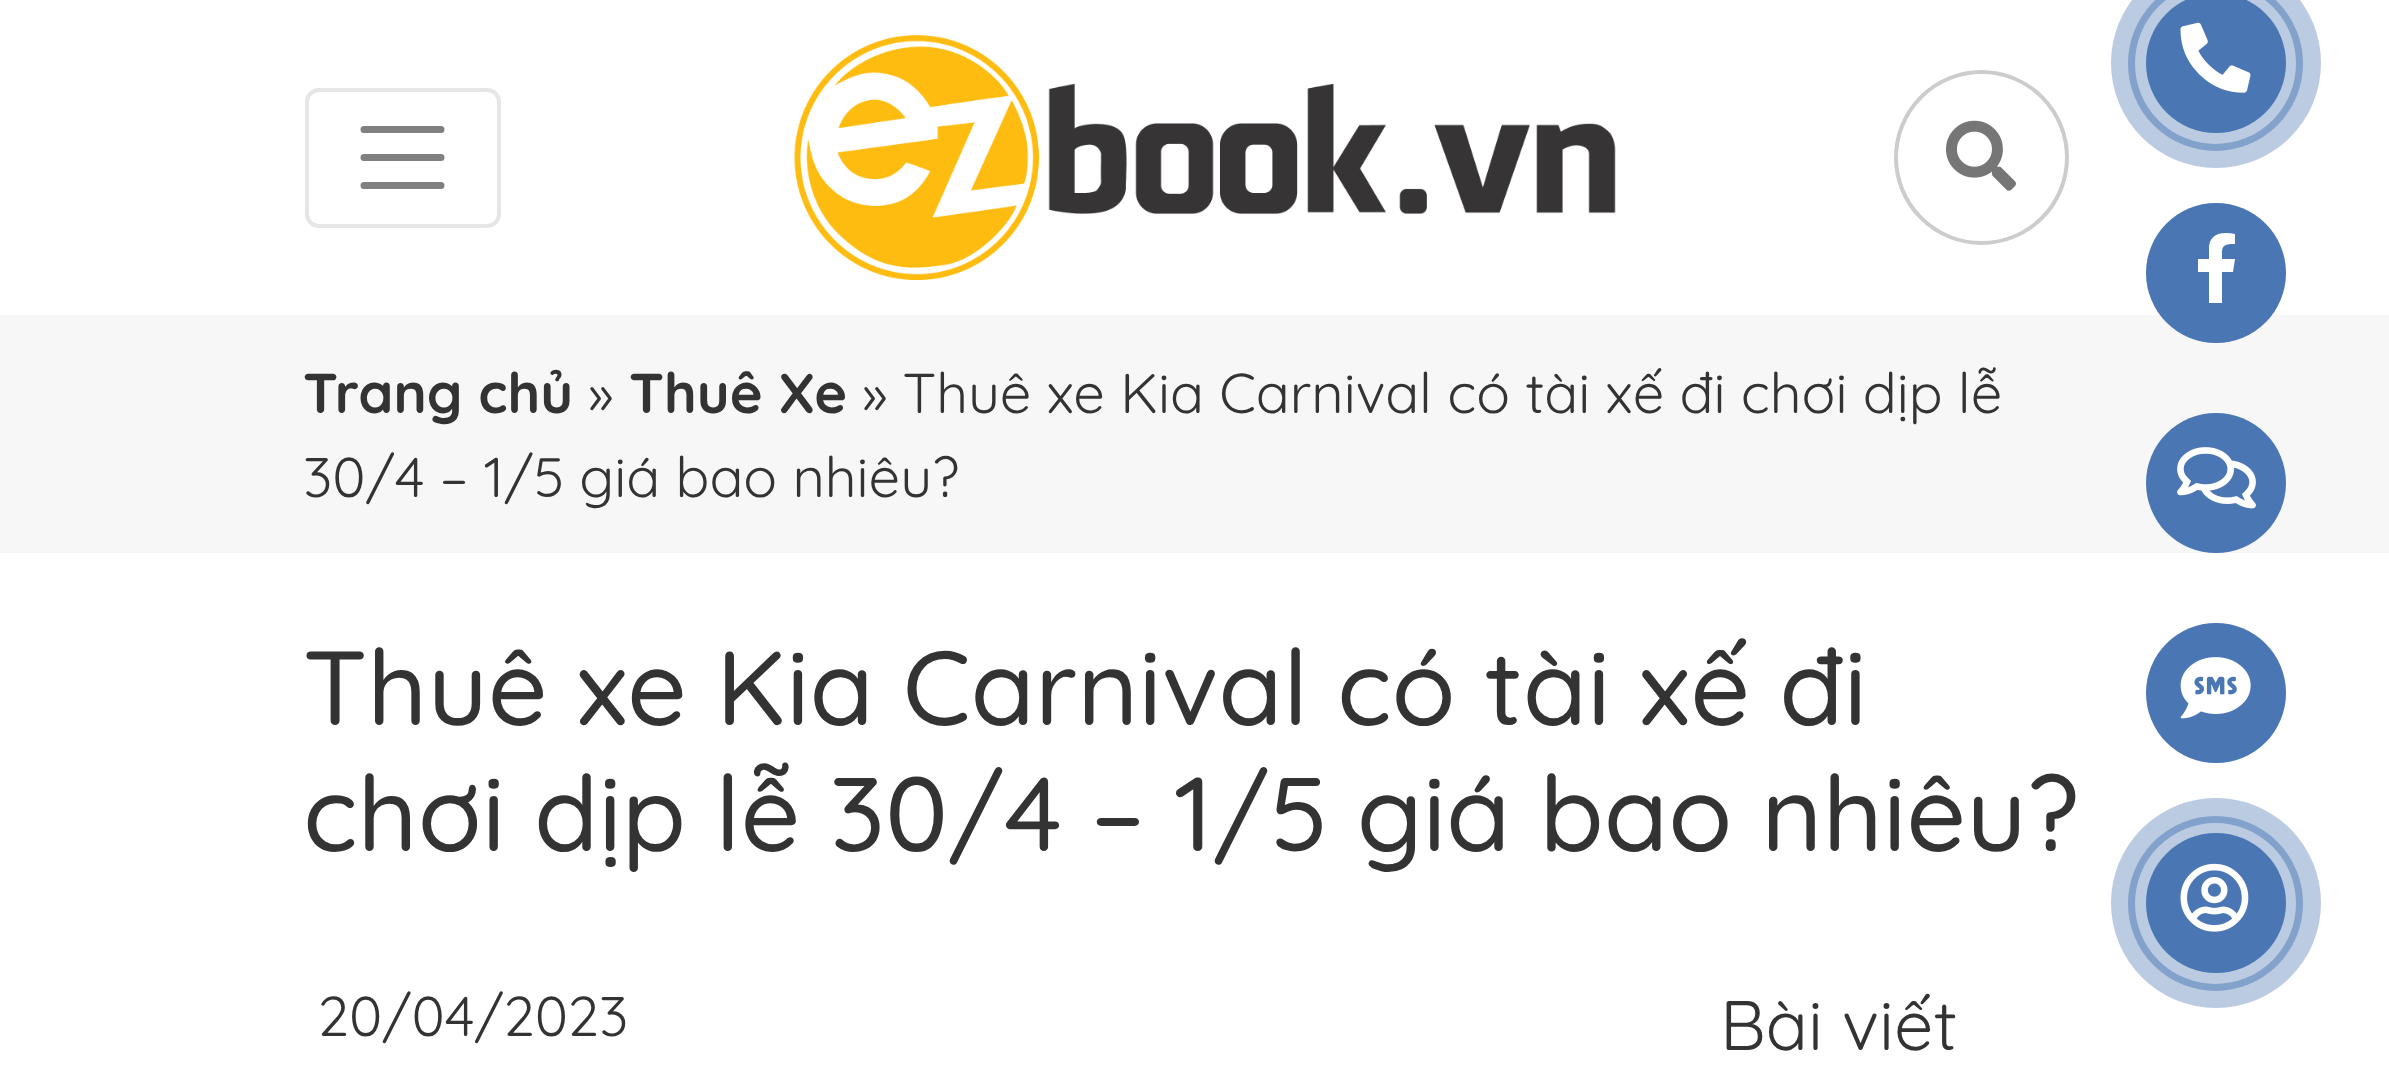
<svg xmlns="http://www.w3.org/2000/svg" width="2389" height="1075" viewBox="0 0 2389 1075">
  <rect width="100%" height="100%" fill="#ffffff"/>
  <rect x="307" y="90" width="192" height="136" rx="12" fill="none" stroke="#e6e6e6" stroke-width="4"/>
  <path d="M364 129.5H441M364 157.5H441M364 185.5H441" fill="none" stroke="#808080" stroke-width="7" stroke-linecap="round"/>
  <image x="794" y="35" width="822" height="245" href="img1.png"/>
  <circle cx="1981.5" cy="157.5" r="85.5" fill="none" stroke="#cccccc" stroke-width="4"/>
  <image x="1946" y="120" width="70" height="71" href="img2.png"/>
  <circle cx="2215.5" cy="63.5" r="84" fill="none" stroke="#a5bbda" stroke-width="7"/>
  <circle cx="2216" cy="63" r="105" fill="#4a76b4" fill-opacity="0.38"/>
  <circle cx="2216" cy="63" r="70" fill="#4a76b4"/>
  <image x="2180" y="22" width="71" height="71" href="img3.png"/>
  <rect x="0" y="315" width="2389" height="238" fill="#f7f7f7"/>
  <circle cx="2216" cy="273" r="70" fill="#4a76b4"/>
  <path d="M2233 272H2222V303H2209V272H2198V259H2209V246C2211 232 2224 232 2235 234V244C2221 244 2222 247 2222 259H2235Z" fill="#ffffff"/>
  <circle cx="2216" cy="483" r="70" fill="#4a76b4"/>
  <image x="2177" y="447" width="79" height="62" href="img4.png"/>
  <circle cx="2216" cy="693" r="70" fill="#4a76b4"/>
  <image x="2180" y="657" width="71" height="62" href="img5.png"/>
  <circle cx="2215.5" cy="903.5" r="84" fill="none" stroke="#a5bbda" stroke-width="7"/>
  <circle cx="2216" cy="903" r="105" fill="#4a76b4" fill-opacity="0.38"/>
  <circle cx="2216" cy="903" r="70" fill="#4a76b4"/>
  <image x="2180" y="863" width="69" height="69" href="img6.png"/>
  <text x="303" y="413" font-family="Quicksand" font-size="56" font-weight="bold" fill="#333333">Trang chủ</text>
  <text x="588" y="413" font-family="Quicksand" font-size="56" fill="#333333">»</text>
  <text x="629" y="413" font-family="Quicksand" font-size="56" font-weight="bold" fill="#333333">Thuê Xe</text>
  <text x="862" y="413" font-family="Quicksand" font-size="56" fill="#333333">» Thuê xe Kia Carnival có tài xế đi chơi dịp lễ</text>
  <text x="303" y="497" font-family="Quicksand" font-size="56" fill="#333333">30/4 – 1/5 giá bao nhiêu?</text>
  <text x="303" y="725" font-family="Quicksand" font-size="105" font-weight="500" fill="#333333">Thuê xe Kia Carnival có tài xế đi</text>
  <text x="303" y="851" font-family="Quicksand" font-size="105" font-weight="500" fill="#333333">chơi dịp lễ 30/4 – 1/5 giá bao nhiêu?</text>
  <text x="318" y="1036" font-family="Quicksand" font-size="56" fill="#333333">20/04/2023</text>
  <text x="1720" y="1050" font-family="Quicksand" font-size="70" fill="#333333">Bài viết</text>
</svg>
